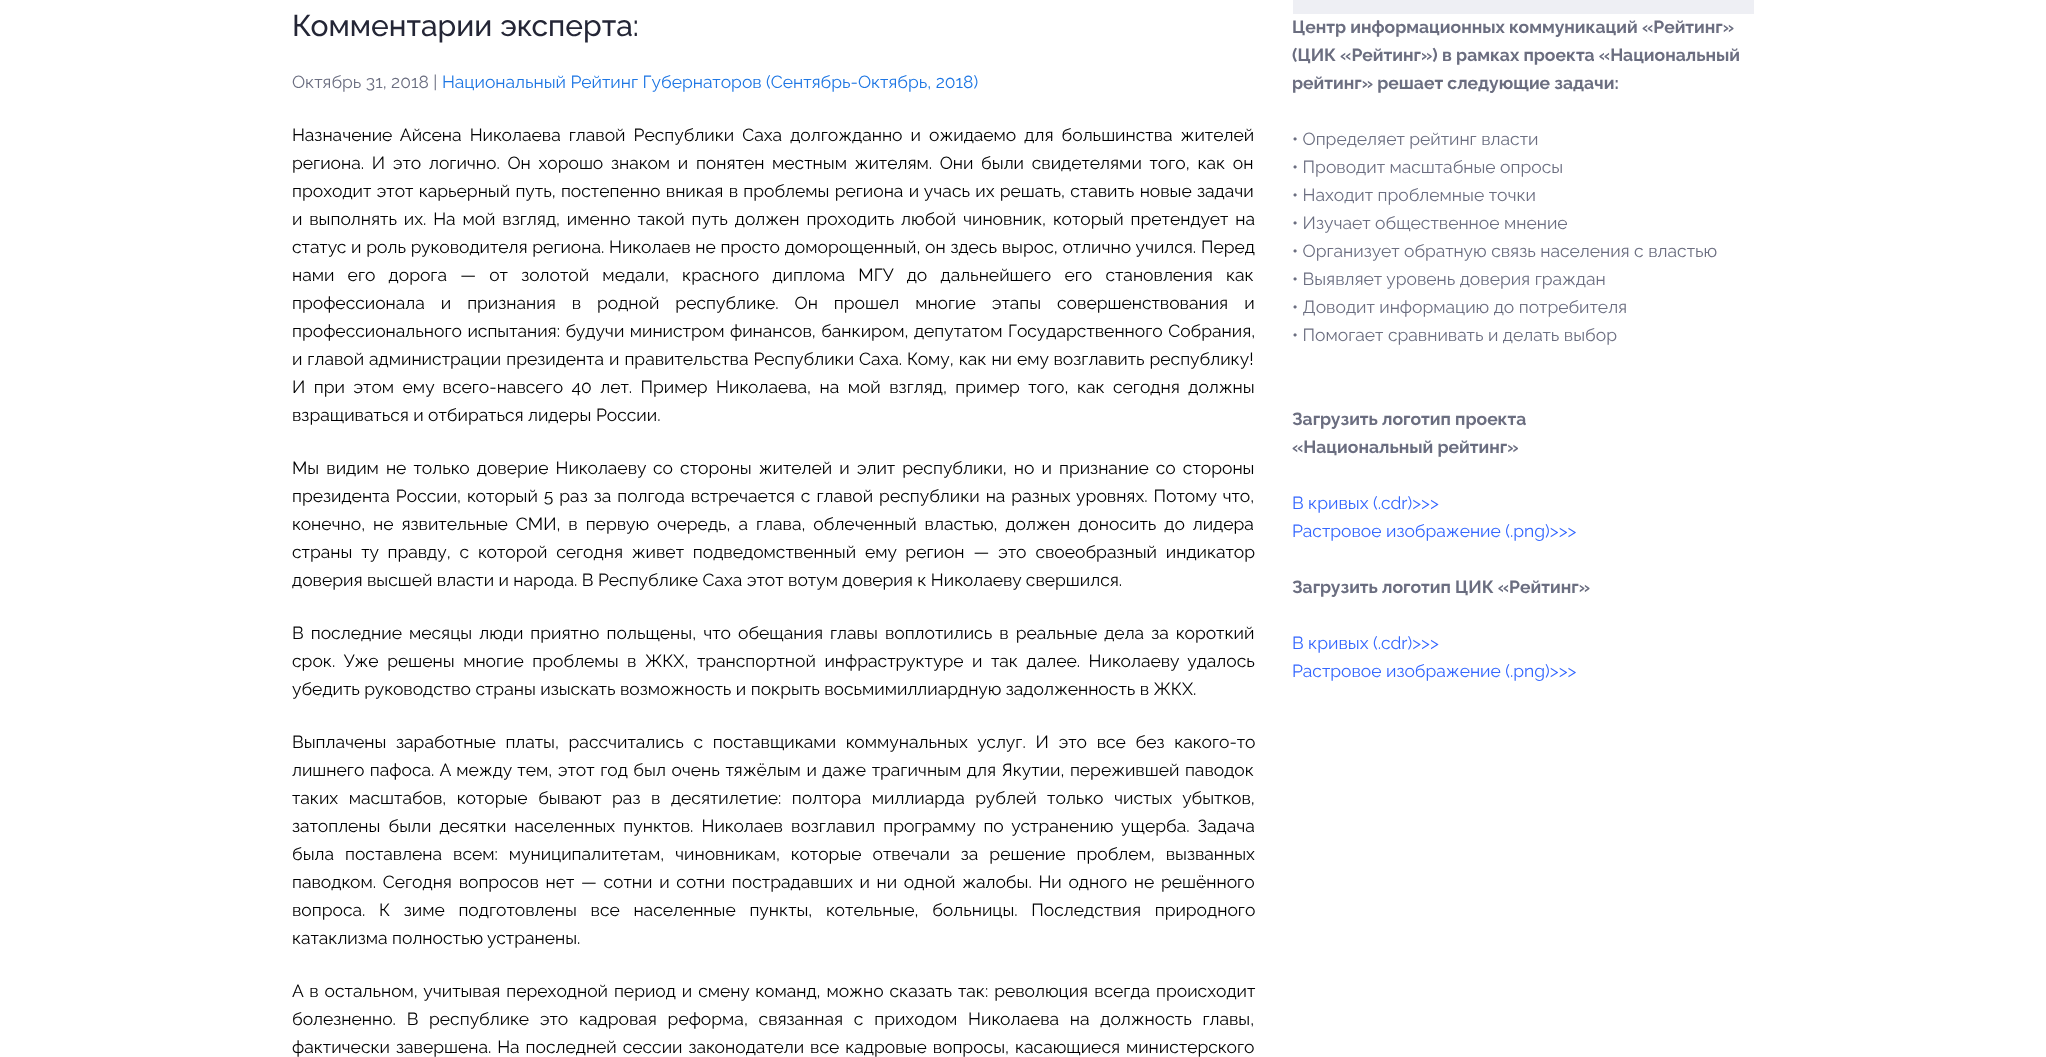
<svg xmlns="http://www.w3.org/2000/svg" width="2046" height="1057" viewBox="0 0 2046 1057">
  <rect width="100%" height="100%" fill="#ffffff"/>
  <text x="292" y="36" font-family="Raleway" font-size="30" font-weight="500" fill="#242636">Комментарии эксперта:</text>
  <text x="292" y="88" font-family="Raleway" font-size="17.5" fill="#6b6e80">Октябрь 31, 2018 |</text>
  <text x="442" y="88" font-family="Raleway" font-size="17.5" fill="#1d76e4">Национальный Рейтинг Губернаторов (Сентябрь-Октябрь, 2018)</text>
  <text x="292" y="141" word-spacing="3.6" font-family="Raleway" font-size="17.5" fill="#000000">Назначение Айсена Николаева главой Республики Саха долгожданно и ожидаемо для большинства жителей</text>
  <text x="292" y="169" word-spacing="3.25" font-family="Raleway" font-size="17.5" fill="#000000">региона. И это логично. Он хорошо знаком и понятен местным жителям. Они были свидетелями того, как он</text>
  <text x="292" y="197" word-spacing="0.8" font-family="Raleway" font-size="17.5" fill="#000000">проходит этот карьерный путь, постепенно вникая в проблемы региона и учась их решать, ставить новые задачи</text>
  <text x="292" y="225" word-spacing="2.4" font-family="Raleway" font-size="17.5" fill="#000000">и выполнять их. На мой взгляд, именно такой путь должен проходить любой чиновник, который претендует на</text>
  <text x="292" y="253" word-spacing="0.25" font-family="Raleway" font-size="17.5" fill="#000000">статус и роль руководителя региона. Николаев не просто доморощенный, он здесь вырос, отлично учился. Перед</text>
  <text x="292" y="281" word-spacing="8.75" font-family="Raleway" font-size="17.5" fill="#000000">нами его дорога — от золотой медали, красного диплома МГУ до дальнейшего его становления как</text>
  <text x="292" y="309" word-spacing="11.5" font-family="Raleway" font-size="17.5" fill="#000000">профессионала и признания в родной республике. Он прошел многие этапы совершенствования и</text>
  <text x="292" y="337" word-spacing="1" font-family="Raleway" font-size="17.5" fill="#000000">профессионального испытания: будучи министром финансов, банкиром, депутатом Государственного Собрания,</text>
  <text x="292" y="365" word-spacing="0.5" font-family="Raleway" font-size="17.5" fill="#000000">и главой администрации президента и правительства Республики Саха. Кому, как ни ему возглавить республику!</text>
  <text x="292" y="393" word-spacing="4" font-family="Raleway" font-size="17.5" fill="#000000">И при этом ему всего-навсего 40 лет. Пример Николаева, на мой взгляд, пример того, как сегодня должны</text>
  <text x="292" y="421" font-family="Raleway" font-size="17.5" fill="#000000">взращиваться и отбираться лидеры России.</text>
  <text x="292" y="474" word-spacing="2.6" font-family="Raleway" font-size="17.5" fill="#000000">Мы видим не только доверие Николаеву со стороны жителей и элит республики, но и признание со стороны</text>
  <text x="292" y="502" word-spacing="1.5" font-family="Raleway" font-size="17.5" fill="#000000">президента России, который 5 раз за полгода встречается с главой республики на разных уровнях. Потому что,</text>
  <text x="292" y="530" word-spacing="3.5" font-family="Raleway" font-size="17.5" fill="#000000">конечно, не язвительные СМИ, в первую очередь, а глава, облеченный властью, должен доносить до лидера</text>
  <text x="292" y="558" word-spacing="4.4" font-family="Raleway" font-size="17.5" fill="#000000">страны ту правду, с которой сегодня живет подведомственный ему регион — это своеобразный индикатор</text>
  <text x="292" y="586" font-family="Raleway" font-size="17.5" fill="#000000">доверия высшей власти и народа. В Республике Саха этот вотум доверия к Николаеву свершился.</text>
  <text x="292" y="639" word-spacing="2.6" font-family="Raleway" font-size="17.5" fill="#000000">В последние месяцы люди приятно польщены, что обещания главы воплотились в реальные дела за короткий</text>
  <text x="292" y="667" word-spacing="4.1" font-family="Raleway" font-size="17.5" fill="#000000">срок. Уже решены многие проблемы в ЖКХ, транспортной инфраструктуре и так далее. Николаеву удалось</text>
  <text x="292" y="695" font-family="Raleway" font-size="17.5" fill="#000000">убедить руководство страны изыскать возможность и покрыть восьмимиллиардную задолженность в ЖКХ.</text>
  <text x="292" y="748" word-spacing="5.25" font-family="Raleway" font-size="17.5" fill="#000000">Выплачены заработные платы, рассчитались с поставщиками коммунальных услуг. И это все без какого-то</text>
  <text x="292" y="776" word-spacing="1.1" font-family="Raleway" font-size="17.5" fill="#000000">лишнего пафоса. А между тем, этот год был очень тяжёлым и даже трагичным для Якутии, пережившей паводок</text>
  <text x="292" y="804" word-spacing="6.1" font-family="Raleway" font-size="17.5" fill="#000000">таких масштабов, которые бывают раз в десятилетие: полтора миллиарда рублей только чистых убытков,</text>
  <text x="292" y="832" word-spacing="3.6" font-family="Raleway" font-size="17.5" fill="#000000">затоплены были десятки населенных пунктов. Николаев возглавил программу по устранению ущерба. Задача</text>
  <text x="292" y="860" word-spacing="6.5" font-family="Raleway" font-size="17.5" fill="#000000">была поставлена всем: муниципалитетам, чиновникам, которые отвечали за решение проблем, вызванных</text>
  <text x="292" y="888" word-spacing="2.25" font-family="Raleway" font-size="17.5" fill="#000000">паводком. Сегодня вопросов нет — сотни и сотни пострадавших и ни одной жалобы. Ни одного не решённого</text>
  <text x="292" y="916" word-spacing="9.25" font-family="Raleway" font-size="17.5" fill="#000000">вопроса. К зиме подготовлены все населенные пункты, котельные, больницы. Последствия природного</text>
  <text x="292" y="944" font-family="Raleway" font-size="17.5" fill="#000000">катаклизма полностью устранены.</text>
  <text x="292" y="997" word-spacing="1.5" font-family="Raleway" font-size="17.5" fill="#000000">А в остальном, учитывая переходной период и смену команд, можно сказать так: революция всегда происходит</text>
  <text x="292" y="1025" word-spacing="6.25" font-family="Raleway" font-size="17.5" fill="#000000">болезненно. В республике это кадровая реформа, связанная с приходом Николаева на должность главы,</text>
  <text x="292" y="1053" word-spacing="1.5" font-family="Raleway" font-size="17.5" fill="#000000">фактически завершена. На последней сессии законодатели все кадровые вопросы, касающиеся министерского</text>
  <rect x="1293" y="0" width="461" height="14" fill="#eeeff4"/>
  <text x="1292" y="33" font-family="Raleway" font-size="17.5" font-weight="bold" fill="#6b6e80">Центр информационных коммуникаций «Рейтинг»</text>
  <text x="1292" y="61" font-family="Raleway" font-size="17.5" font-weight="bold" fill="#6b6e80">(ЦИК «Рейтинг») в рамках проекта «Национальный</text>
  <text x="1292" y="89" font-family="Raleway" font-size="17.5" font-weight="bold" fill="#6b6e80">рейтинг» решает следующие задачи:</text>
  <text x="1292" y="145" font-family="Raleway" font-size="17.5" fill="#6b6e80">• Определяет рейтинг власти</text>
  <text x="1292" y="173" font-family="Raleway" font-size="17.5" fill="#6b6e80">• Проводит масштабные опросы</text>
  <text x="1292" y="201" font-family="Raleway" font-size="17.5" fill="#6b6e80">• Находит проблемные точки</text>
  <text x="1292" y="229" font-family="Raleway" font-size="17.5" fill="#6b6e80">• Изучает общественное мнение</text>
  <text x="1292" y="257" font-family="Raleway" font-size="17.5" fill="#6b6e80">• Организует обратную связь населения с властью</text>
  <text x="1292" y="285" font-family="Raleway" font-size="17.5" fill="#6b6e80">• Выявляет уровень доверия граждан</text>
  <text x="1292" y="313" font-family="Raleway" font-size="17.5" fill="#6b6e80">• Доводит информацию до потребителя</text>
  <text x="1292" y="341" font-family="Raleway" font-size="17.5" fill="#6b6e80">• Помогает сравнивать и делать выбор</text>
  <text x="1292" y="425" font-family="Raleway" font-size="17.5" font-weight="bold" fill="#6b6e80">Загрузить логотип проекта</text>
  <text x="1292" y="453" font-family="Raleway" font-size="17.5" font-weight="bold" fill="#6b6e80">«Национальный рейтинг»</text>
  <text x="1292" y="509" font-family="Raleway" font-size="17.5" fill="#3366ff">В кривых (.cdr)&gt;&gt;&gt;</text>
  <text x="1292" y="537" font-family="Raleway" font-size="17.5" fill="#3366ff">Растровое изображение (.png)&gt;&gt;&gt;</text>
  <text x="1292" y="593" font-family="Raleway" font-size="17.5" font-weight="bold" fill="#6b6e80">Загрузить логотип ЦИК «Рейтинг»</text>
  <text x="1292" y="649" font-family="Raleway" font-size="17.5" fill="#3366ff">В кривых (.cdr)&gt;&gt;&gt;</text>
  <text x="1292" y="677" font-family="Raleway" font-size="17.5" fill="#3366ff">Растровое изображение (.png)&gt;&gt;&gt;</text>
</svg>
